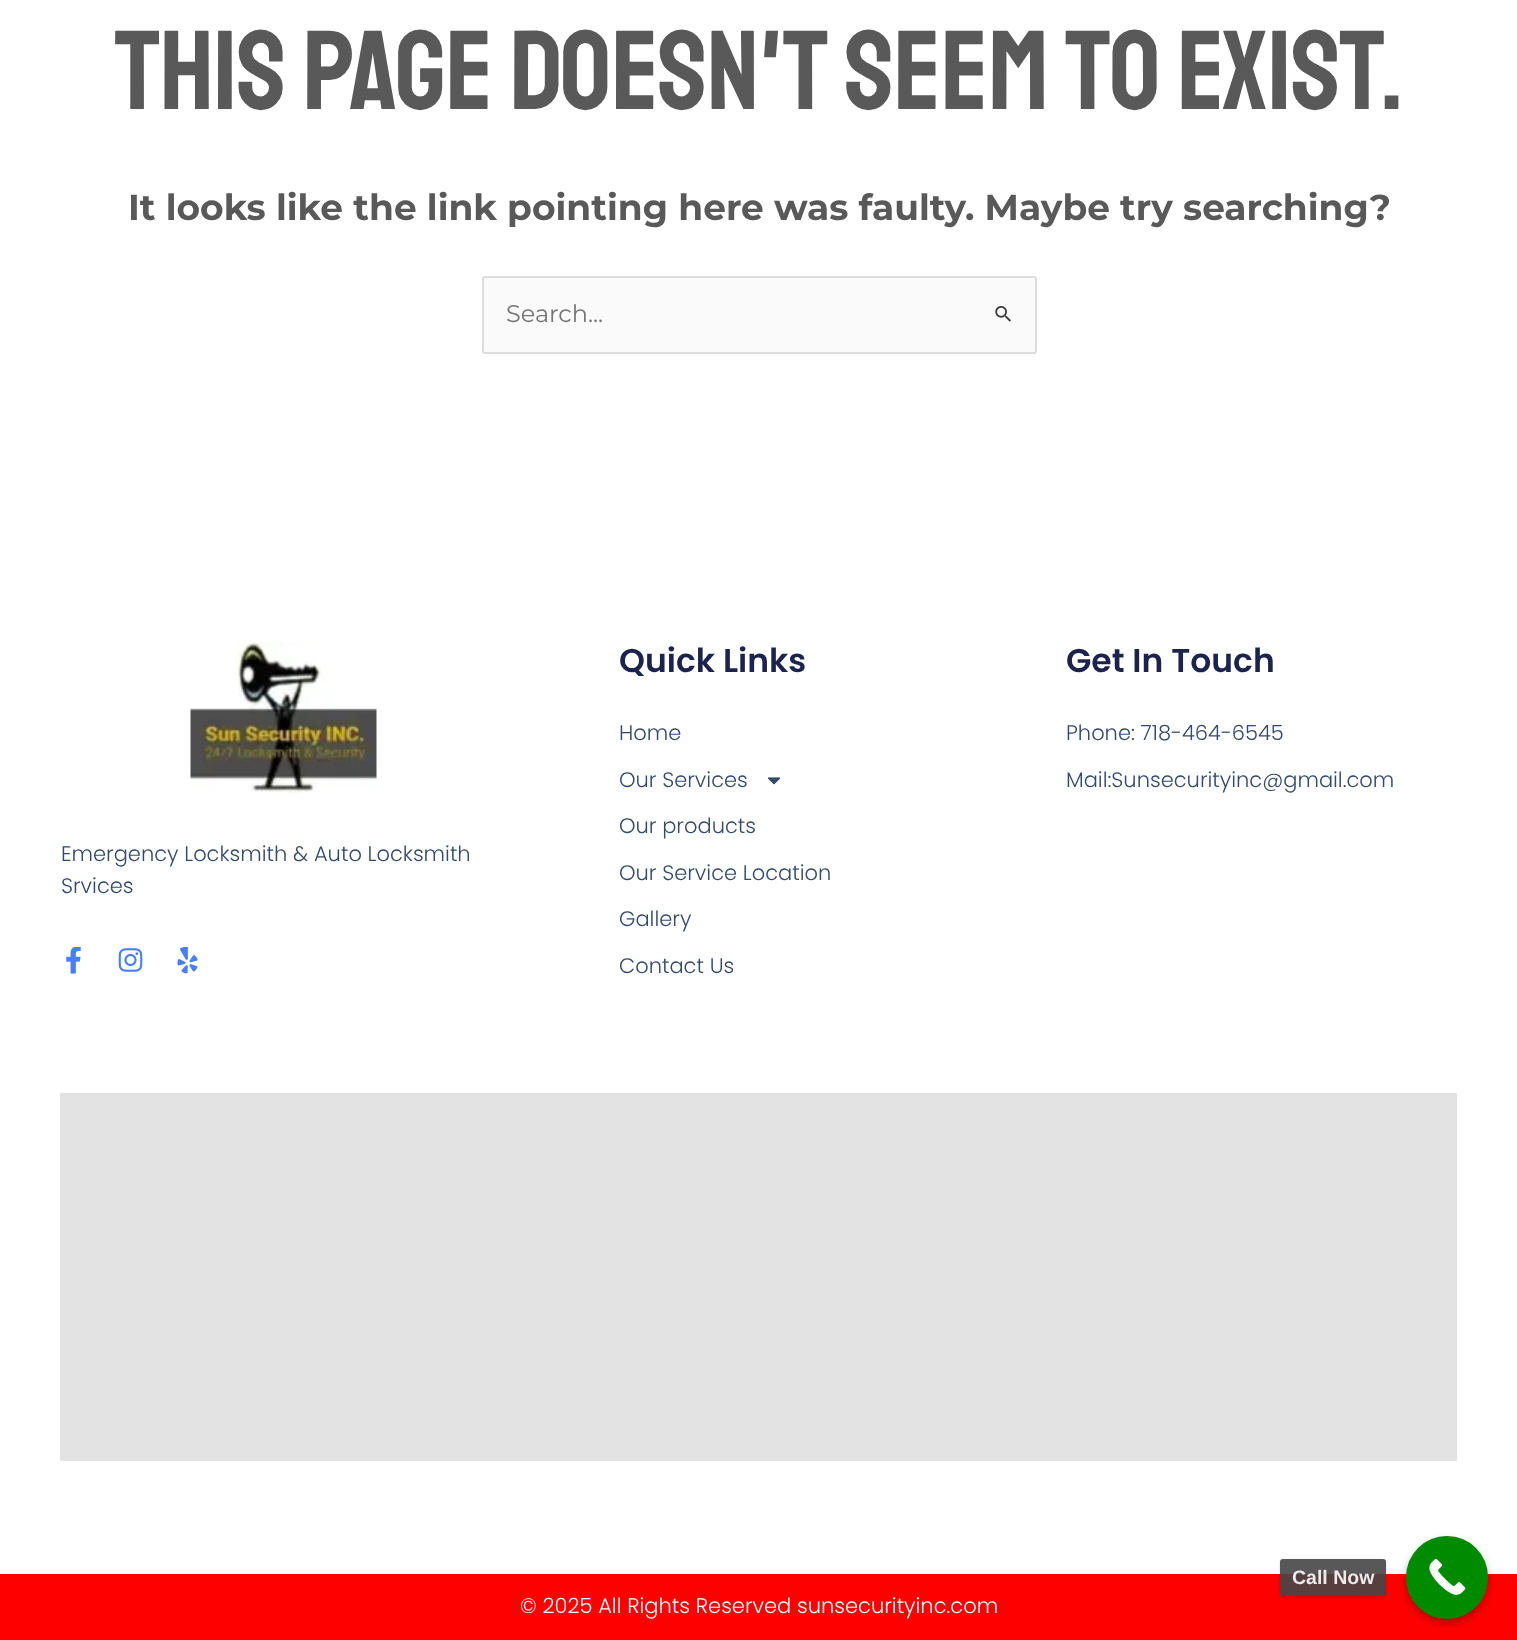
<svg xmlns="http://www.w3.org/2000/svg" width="1517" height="1640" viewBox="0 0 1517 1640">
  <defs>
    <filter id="blur1" x="-50%" y="-200%" width="200%" height="500%"><feGaussianBlur stdDeviation="4.5"/></filter>
    <clipPath id="clip1"><path d="M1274 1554H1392V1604H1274ZM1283 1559H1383C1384.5 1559 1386 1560.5 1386 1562V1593C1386 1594.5 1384.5 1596 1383 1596H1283C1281.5 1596 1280 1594.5 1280 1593V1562C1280 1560.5 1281.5 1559 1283 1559Z" clip-rule="evenodd"/></clipPath>
    <filter id="blur2" x="-50%" y="-200%" width="200%" height="500%"><feGaussianBlur stdDeviation="1.5"/></filter>
  </defs>
  <rect width="100%" height="100%" fill="#ffffff"/>
  <text x="115" y="109" font-family="Staatliches" font-size="112.5" fill="#595959">This page doesn't seem to exist.</text>
  <text x="128" y="220" font-family="Montserrat" font-size="36" font-weight="bold" fill="#595959">It looks like the link pointing here was faulty. Maybe try searching?</text>
  <rect x="483" y="277" width="553" height="76" rx="2" fill="#fafafa" stroke="#dddddd" stroke-width="2"/>
  <text x="506" y="322" font-family="Montserrat" font-size="24" fill="#757575">Search...</text>
  <image x="995" y="306" width="16" height="16" href="img1.png"/>
  <text x="619" y="672" font-family="Poppins" font-size="33" font-weight="600" fill="#1c244b">Quick Links</text>
  <text x="619" y="740" font-family="Poppins" font-size="21" font-weight="300" fill="#324a6d">Home</text>
  <text x="619" y="787" font-family="Poppins" font-size="21" font-weight="300" fill="#324a6d">Our Services</text>
  <image x="767" y="777" width="14" height="8" href="img2.png"/>
  <text x="619" y="833" font-family="Poppins" font-size="21" font-weight="300" fill="#324a6d">Our products</text>
  <text x="619" y="880" font-family="Poppins" font-size="21" font-weight="300" fill="#324a6d">Our Service Location</text>
  <text x="619" y="926" font-family="Poppins" font-size="21" font-weight="300" fill="#324a6d">Gallery</text>
  <text x="619" y="973" font-family="Poppins" font-size="21" font-weight="300" fill="#324a6d">Contact Us</text>
  <text x="1066" y="672" font-family="Poppins" font-size="33" font-weight="600" fill="#1c244b">Get In Touch</text>
  <text x="1066" y="740" font-family="Poppins" font-size="21" font-weight="300" fill="#324a6d">Phone: 718-464-6545</text>
  <text x="1066" y="787" font-family="Poppins" font-size="21" font-weight="300" fill="#324a6d">Mail:Sunsecurityinc@gmail.com</text>
  <image x="190" y="641" width="187" height="152" href="img3.png"/>
  <text x="61" y="861" font-family="Poppins" font-size="21" font-weight="300" fill="#324a6d">Emergency Locksmith &amp; Auto Locksmith</text>
  <text x="61" y="893" font-family="Poppins" font-size="21" font-weight="300" fill="#324a6d">Srvices</text>
  <image x="66" y="947" width="15" height="27" href="img4.png"/>
  <image x="118" y="948" width="25" height="24" href="img5.png"/>
  <image x="177" y="947" width="21" height="27" href="img6.png"/>
  <rect x="60" y="1093" width="1397" height="368" fill="#e3e3e3"/>
  <rect x="0" y="1574" width="1517" height="66" fill="#ff0000"/>
  <text x="520" y="1613" font-family="Poppins" font-size="21" font-weight="300" fill="#ffffff">© 2025 All Rights Reserved sunsecurityinc.com</text>
  <rect x="1406" y="1541" width="82" height="82" rx="41" fill="#000000" fill-opacity="0.3" filter="url(#blur1)"/>
  <rect x="1406" y="1536" width="82" height="83" rx="41" fill="#008a00"/>
  <image x="1429" y="1558" width="37" height="37" href="img7.png"/>
  <g clip-path="url(#clip1)">
    <rect x="1280" y="1560" width="106" height="38" rx="3" fill="#000000" fill-opacity="0.15" filter="url(#blur2)"/>
  </g>
  <rect x="1280" y="1559" width="106" height="37" rx="3" fill="#464646" fill-opacity="0.9"/>
  <text x="1292" y="1584" font-family="Liberation Sans" font-size="19.5" font-weight="bold" fill="#ececec">Call Now</text>
</svg>
